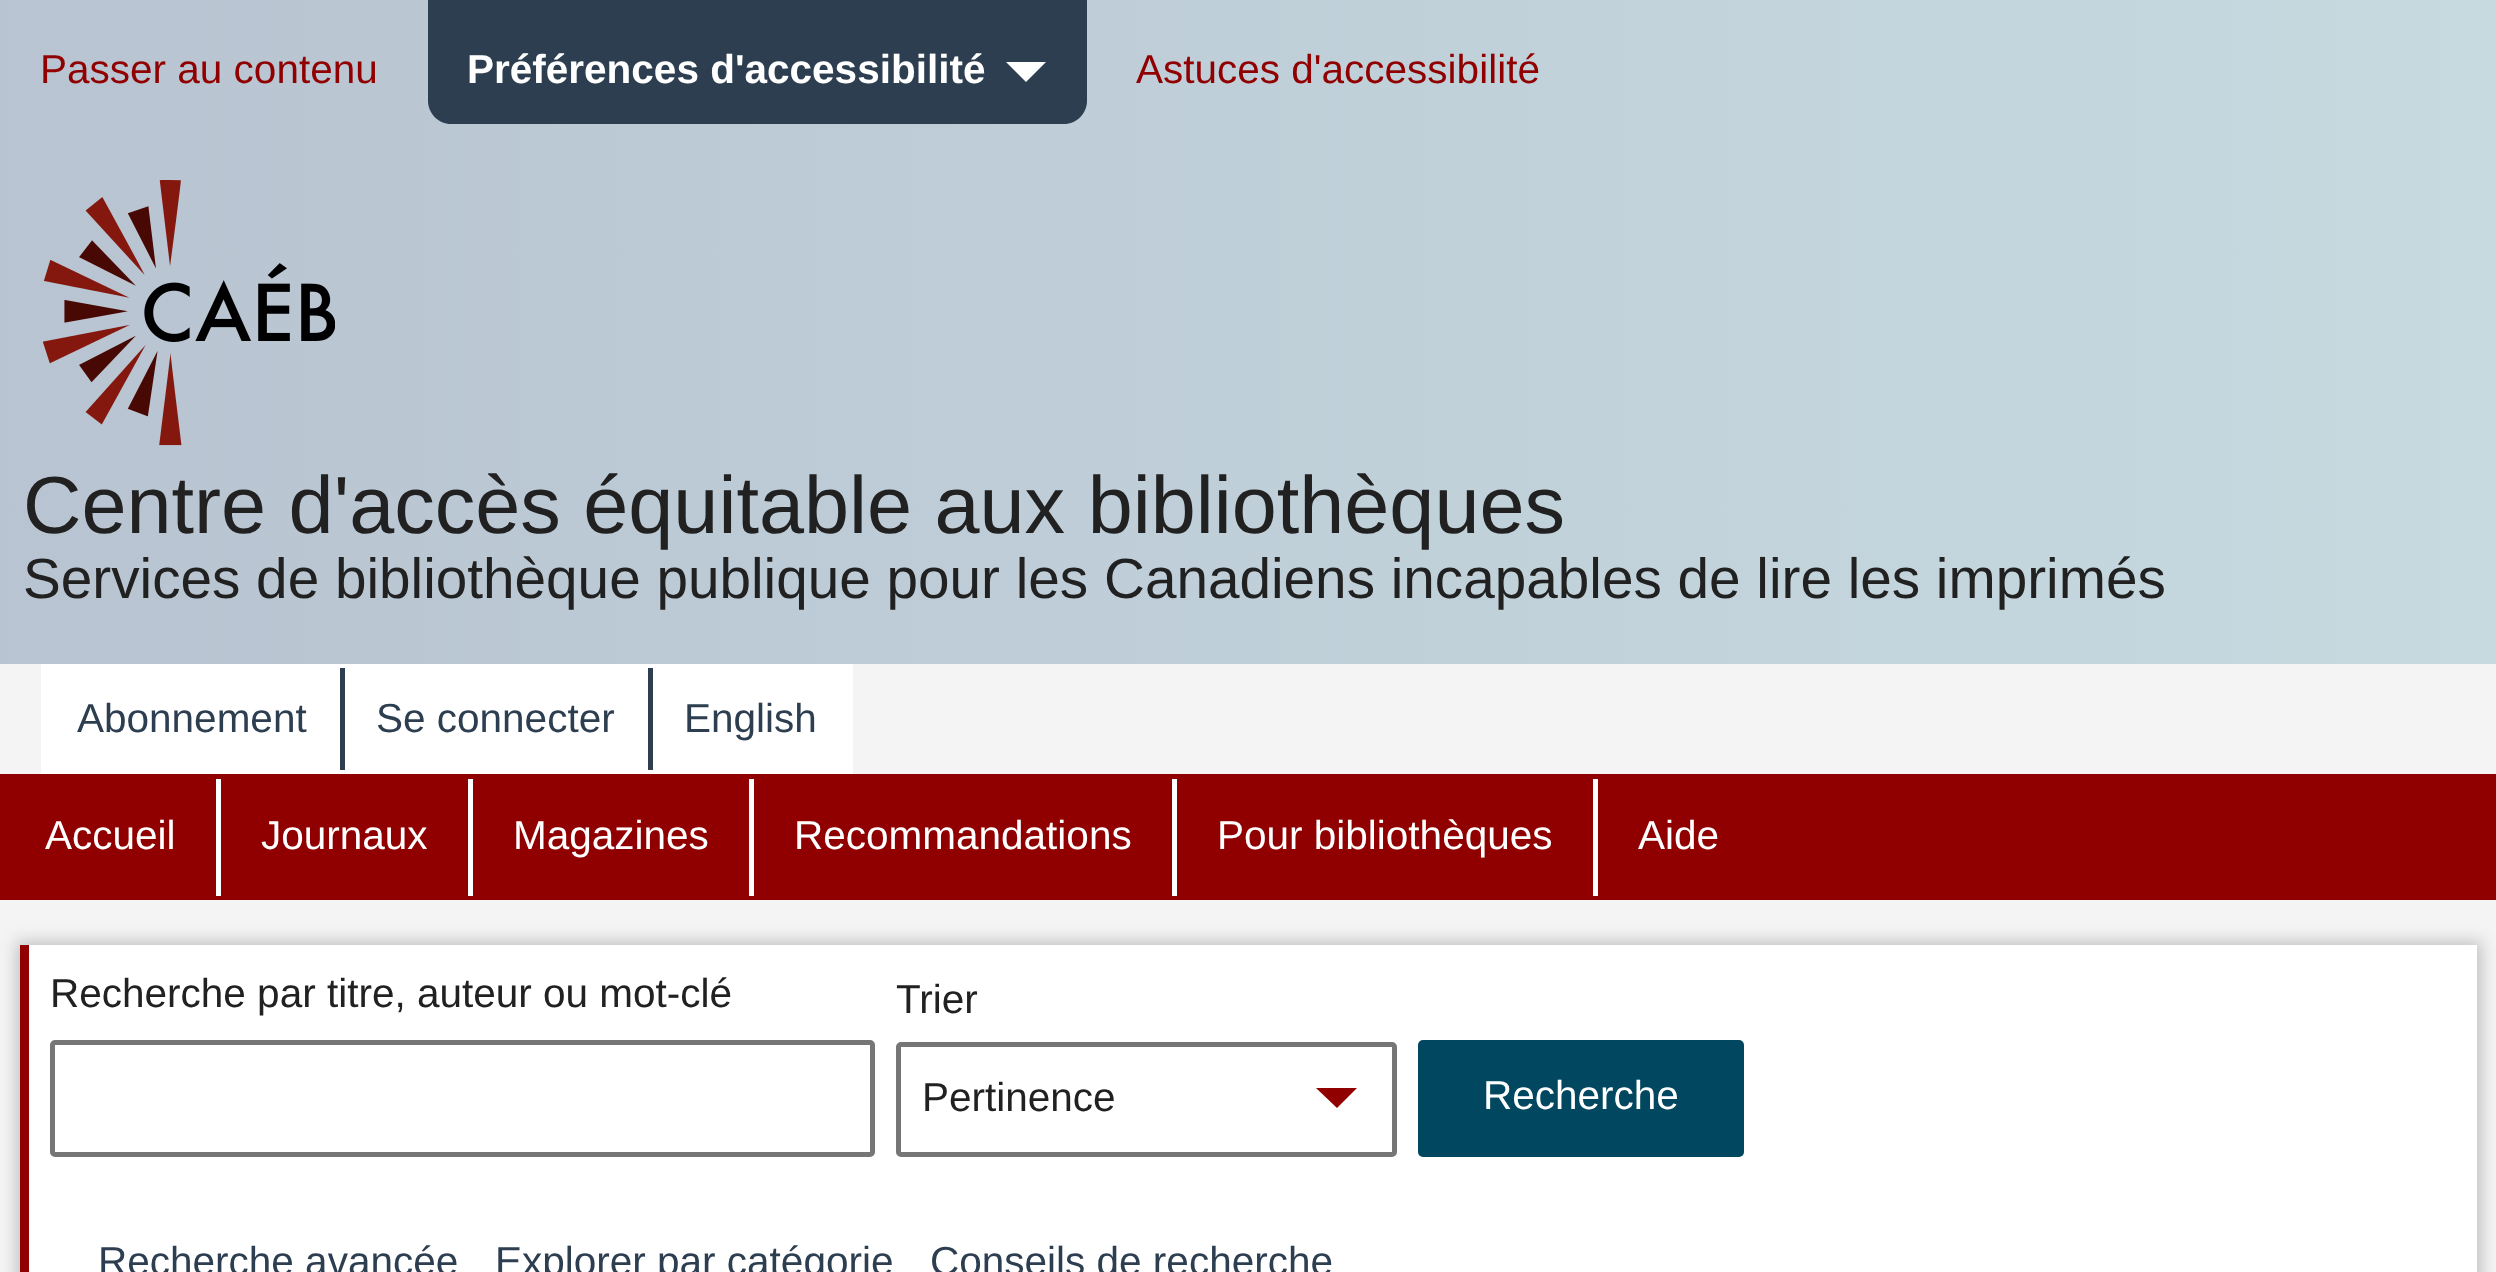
<svg xmlns="http://www.w3.org/2000/svg" width="2496" height="1272" viewBox="0 0 2496 1272">
  <defs>
    <linearGradient id="g1" gradientUnits="userSpaceOnUse" x1="0" y1="72" x2="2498" y2="72"><stop offset="0" stop-color="#b8c4d1"/><stop offset="1" stop-color="#c7dae0"/></linearGradient>
    <linearGradient id="g2" gradientUnits="userSpaceOnUse" x1="0" y1="404" x2="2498" y2="404"><stop offset="0" stop-color="#b8c4d1"/><stop offset="1" stop-color="#c7dae0"/></linearGradient>
    <filter id="blur1" x="-50%" y="-200%" width="200%" height="500%"><feGaussianBlur stdDeviation="8"/></filter>
  </defs>
  <rect width="100%" height="100%" fill="#f4f4f4"/>
  <rect x="0" y="0" width="2496" height="144" fill="url(#g1)"/>
  <text x="40" y="83" font-family="Liberation Sans" font-size="40.5" fill="#900000">Passer au contenu</text>
  <path d="M428 0H1087V101C1087 113.5 1076.5 124 1064 124H451C438.5 124 428 113.5 428 101Z" fill="#2c3e50"/>
  <text x="467" y="83" font-family="Liberation Sans" font-size="40.5" font-weight="bold" fill="#ffffff">Préférences d'accessibilité</text>
  <path d="M1036 72L1026 82L1006 62H1046Z" fill="#ffffff"/>
  <text x="1136" y="83" font-family="Liberation Sans" font-size="40.5" fill="#900000">Astuces d'accessibilité</text>
  <rect x="0" y="144" width="2496" height="520" fill="url(#g2)"/>
  <image x="43" y="180" width="292" height="266" href="img1.png"/>
  <text x="23" y="533" font-family="Liberation Sans" font-size="81" fill="#212121">Centre d'accès équitable aux bibliothèques</text>
  <text x="23" y="598" font-family="Liberation Sans" font-size="56.7" fill="#212121">Services de bibliothèque publique pour les Canadiens incapables de lire les imprimés</text>
  <rect x="41" y="664" width="812" height="110" fill="#ffffff"/>
  <rect x="340" y="668" width="5" height="102" fill="#2c3e50"/>
  <text x="77" y="732" font-family="Liberation Sans" font-size="40.5" fill="#2c3e50">Abonnement</text>
  <rect x="648" y="668" width="5" height="102" fill="#2c3e50"/>
  <text x="376" y="732" font-family="Liberation Sans" font-size="40.5" fill="#2c3e50">Se connecter</text>
  <text x="684" y="732" font-family="Liberation Sans" font-size="40.5" fill="#2c3e50">English</text>
  <rect x="0" y="774" width="2496" height="126" fill="#900000"/>
  <rect x="216" y="779" width="5" height="117" fill="#ffffff"/>
  <text x="45" y="849" font-family="Liberation Sans" font-size="40.5" fill="#ffffff">Accueil</text>
  <rect x="468" y="779" width="5" height="117" fill="#ffffff"/>
  <text x="261" y="849" font-family="Liberation Sans" font-size="40.5" fill="#ffffff">Journaux</text>
  <rect x="749" y="779" width="5" height="117" fill="#ffffff"/>
  <text x="513" y="849" font-family="Liberation Sans" font-size="40.5" fill="#ffffff">Magazines</text>
  <rect x="1172" y="779" width="5" height="117" fill="#ffffff"/>
  <text x="794" y="849" font-family="Liberation Sans" font-size="40.5" fill="#ffffff">Recommandations</text>
  <rect x="1593" y="779" width="5" height="117" fill="#ffffff"/>
  <text x="1217" y="849" font-family="Liberation Sans" font-size="40.5" fill="#ffffff">Pour bibliothèques</text>
  <text x="1638" y="849" font-family="Liberation Sans" font-size="40.5" fill="#ffffff">Aide</text>
  <rect x="16" y="941" width="2466" height="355" fill="#000000" fill-opacity="0.2" filter="url(#blur1)"/>
  <rect x="29" y="945" width="2448" height="327" fill="#ffffff"/>
  <rect x="20" y="945" width="9" height="327" fill="#900000"/>
  <text x="50" y="1007" font-family="Liberation Sans" font-size="40.5" fill="#212121">Recherche par titre, auteur ou mot-clé</text>
  <rect x="52.5" y="1042.5" width="820" height="112" rx="2.5" fill="none" stroke="#767676" stroke-width="5"/>
  <text x="896" y="1013" font-family="Liberation Sans" font-size="40.5" fill="#212121">Trier</text>
  <path d="M1347 1098L1337 1108L1316 1088H1357Z" fill="#900000"/>
  <rect x="898.5" y="1044.5" width="496" height="110" rx="2.5" fill="none" stroke="#767676" stroke-width="5"/>
  <text x="922" y="1111" font-family="Liberation Sans" font-size="40.5" fill="#212121">Pertinence</text>
  <rect x="1418" y="1040" width="326" height="117" rx="5" fill="#00475f"/>
  <text x="1483" y="1109" font-family="Liberation Sans" font-size="40.5" fill="#ffffff">Recherche</text>
  <text x="98" y="1275" font-family="Liberation Sans" font-size="40.5" fill="#2c3e50">Recherche avancée</text>
  <text x="495" y="1275" font-family="Liberation Sans" font-size="40.5" fill="#2c3e50">Explorer par catégorie</text>
  <text x="930" y="1275" font-family="Liberation Sans" font-size="40.5" fill="#2c3e50">Conseils de recherche</text>
</svg>
